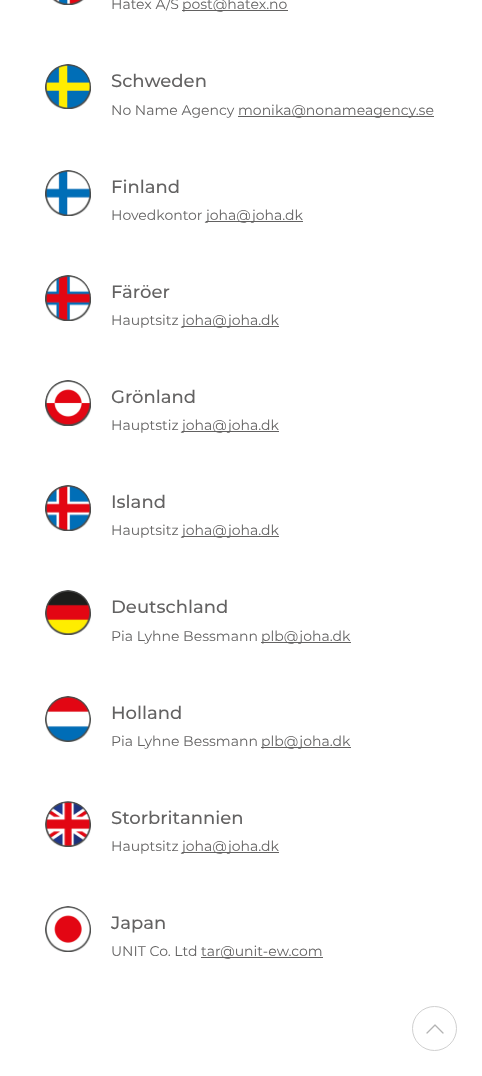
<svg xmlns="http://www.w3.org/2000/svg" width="482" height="1076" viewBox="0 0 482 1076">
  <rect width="100%" height="100%" fill="#ffffff"/>
  <image x="52" y="0" width="32" height="5" href="img1.png"/>
  <text x="111" y="9" font-family="Montserrat" font-size="14" fill="#636262">Hatex A/S</text>
  <rect x="182" y="10" width="106" height="1" fill="#626161"/>
  <text x="182" y="9" font-family="Montserrat" font-size="14" fill="#636262">post@hatex.no</text>
  <image x="45" y="64" width="46" height="45" href="img2.png"/>
  <text x="111" y="87" font-family="Montserrat" font-size="18" font-weight="500" fill="#636262">Schweden</text>
  <text x="111" y="115" font-family="Montserrat" font-size="14" fill="#636262">No Name Agency</text>
  <rect x="238" y="116" width="196" height="1" fill="#626161"/>
  <text x="238" y="115" font-family="Montserrat" font-size="14" fill="#636262">monika@nonameagency.se</text>
  <image x="45" y="170" width="46" height="46" href="img3.png"/>
  <text x="111" y="193" font-family="Montserrat" font-size="18" font-weight="500" fill="#636262">Finland</text>
  <text x="111" y="220" font-family="Montserrat" font-size="14" fill="#636262">Hovedkontor</text>
  <rect x="206" y="221" width="97" height="1" fill="#626161"/>
  <text x="206" y="220" font-family="Montserrat" font-size="14" fill="#636262">joha@joha.dk</text>
  <image x="45" y="275" width="46" height="46" href="img4.png"/>
  <text x="111" y="298" font-family="Montserrat" font-size="18" font-weight="500" fill="#636262">Färöer</text>
  <text x="111" y="325" font-family="Montserrat" font-size="14" fill="#636262">Hauptsitz</text>
  <rect x="182" y="326" width="97" height="1" fill="#626161"/>
  <text x="182" y="325" font-family="Montserrat" font-size="14" fill="#636262">joha@joha.dk</text>
  <image x="45" y="380" width="46" height="46" href="img5.png"/>
  <text x="111" y="403" font-family="Montserrat" font-size="18" font-weight="500" fill="#636262">Grönland</text>
  <text x="111" y="430" font-family="Montserrat" font-size="14" fill="#636262">Hauptstiz</text>
  <rect x="182" y="431" width="97" height="1" fill="#626161"/>
  <text x="182" y="430" font-family="Montserrat" font-size="14" fill="#636262">joha@joha.dk</text>
  <image x="45" y="485" width="46" height="46" href="img6.png"/>
  <text x="111" y="508" font-family="Montserrat" font-size="18" font-weight="500" fill="#636262">Island</text>
  <text x="111" y="535" font-family="Montserrat" font-size="14" fill="#636262">Hauptsitz</text>
  <rect x="182" y="536" width="97" height="1" fill="#626161"/>
  <text x="182" y="535" font-family="Montserrat" font-size="14" fill="#636262">joha@joha.dk</text>
  <image x="45" y="590" width="46" height="45" href="img7.png"/>
  <text x="111" y="613" font-family="Montserrat" font-size="18" font-weight="500" fill="#636262">Deutschland</text>
  <text x="111" y="641" font-family="Montserrat" font-size="14" fill="#636262">Pia Lyhne Bessmann</text>
  <rect x="261" y="642" width="90" height="1" fill="#626161"/>
  <text x="261" y="641" font-family="Montserrat" font-size="14" fill="#636262">plb@joha.dk</text>
  <image x="45" y="696" width="46" height="46" href="img8.png"/>
  <text x="111" y="719" font-family="Montserrat" font-size="18" font-weight="500" fill="#636262">Holland</text>
  <text x="111" y="746" font-family="Montserrat" font-size="14" fill="#636262">Pia Lyhne Bessmann</text>
  <rect x="261" y="747" width="90" height="1" fill="#626161"/>
  <text x="261" y="746" font-family="Montserrat" font-size="14" fill="#636262">plb@joha.dk</text>
  <image x="45" y="801" width="46" height="46" href="img9.png"/>
  <text x="111" y="824" font-family="Montserrat" font-size="18" font-weight="500" fill="#636262">Storbritannien</text>
  <text x="111" y="851" font-family="Montserrat" font-size="14" fill="#636262">Hauptsitz</text>
  <rect x="182" y="852" width="97" height="1" fill="#626161"/>
  <text x="182" y="851" font-family="Montserrat" font-size="14" fill="#636262">joha@joha.dk</text>
  <image x="45" y="906" width="46" height="46" href="img10.png"/>
  <text x="111" y="929" font-family="Montserrat" font-size="18" font-weight="500" fill="#636262">Japan</text>
  <text x="111" y="956" font-family="Montserrat" font-size="14" fill="#636262">UNIT Co. Ltd</text>
  <rect x="201" y="957" width="122" height="1" fill="#626161"/>
  <text x="201" y="956" font-family="Montserrat" font-size="14" fill="#636262">tar@unit-ew.com</text>
  <circle cx="434.5" cy="1028.5" r="22" fill="none" stroke="#d0d0d0"/>
  <image x="426" y="1024" width="18" height="10" href="img11.png"/>
</svg>
